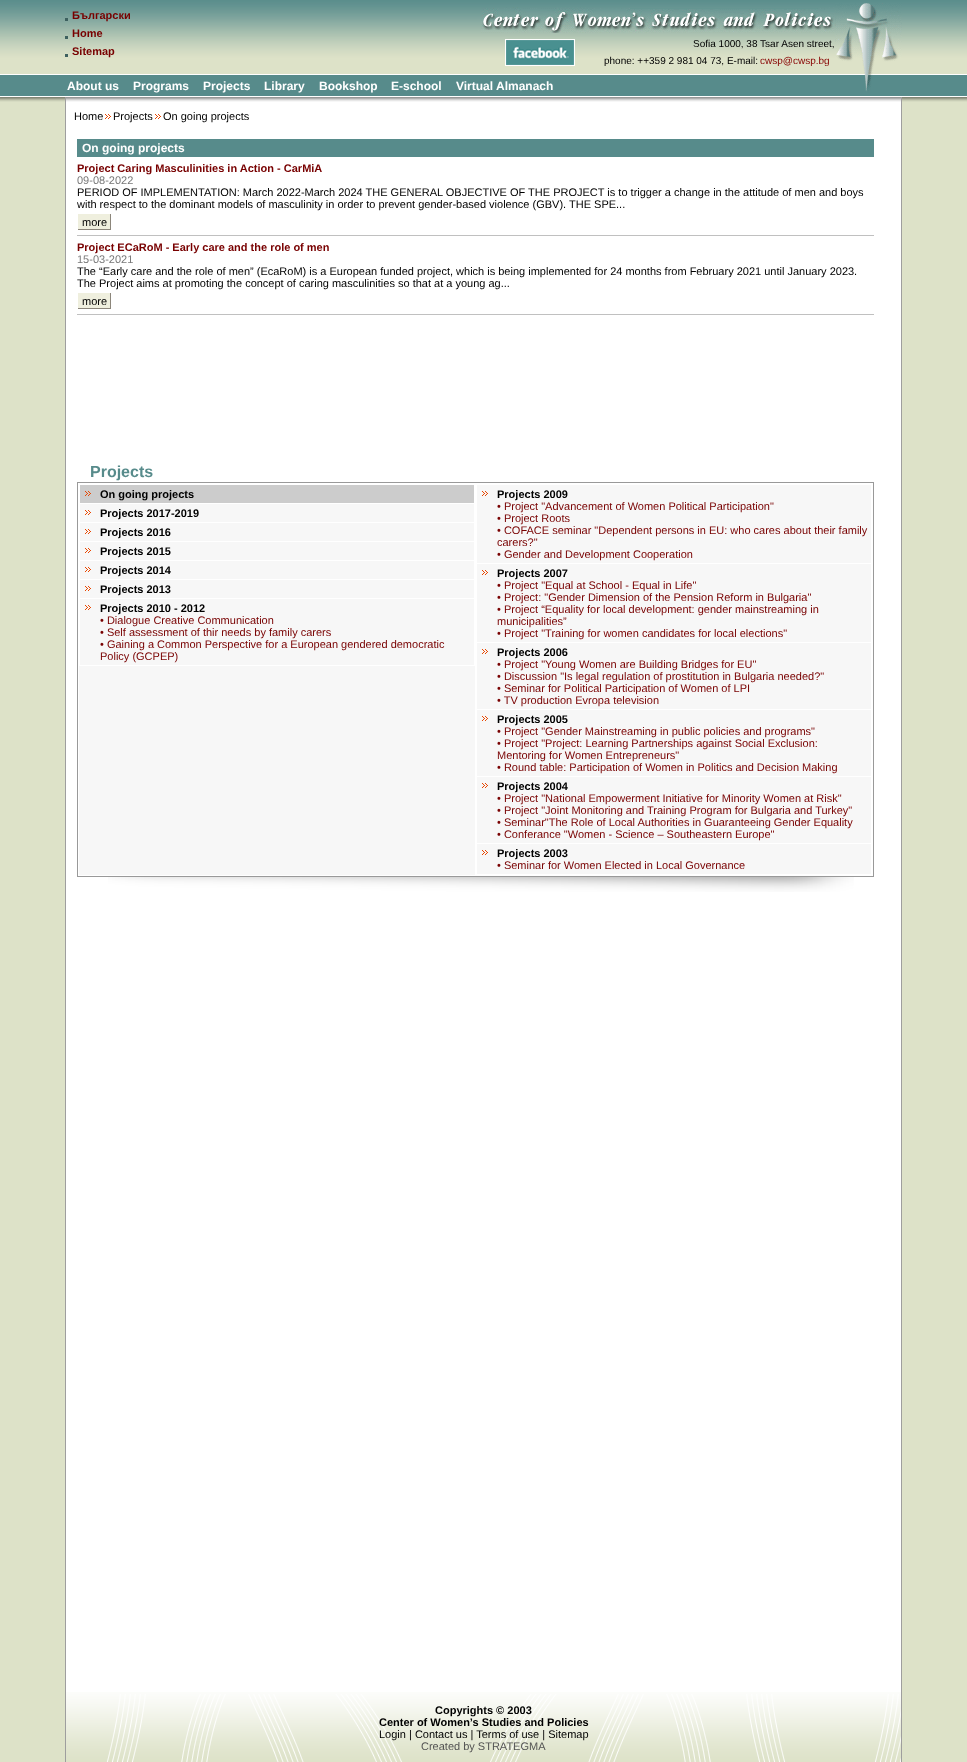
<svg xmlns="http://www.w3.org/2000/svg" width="967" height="1762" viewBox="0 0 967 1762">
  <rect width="100%" height="100%" fill="#ffffff"/>
  <image x="0" y="0" width="65" height="96" href="img1.png"/>
  <image x="65" y="0" width="837" height="96" href="img2.png"/>
  <rect x="65" y="18" width="3" height="3" fill="#3d605f"/>
  <text x="72" y="19" font-family="Liberation Sans" font-size="11" font-weight="bold" fill="#780000">Български</text>
  <rect x="65" y="36" width="3" height="3" fill="#3d605f"/>
  <text x="72" y="37" font-family="Liberation Sans" font-size="11" font-weight="bold" fill="#780000">Home</text>
  <rect x="65" y="54" width="3" height="3" fill="#3d605f"/>
  <text x="72" y="55" font-family="Liberation Sans" font-size="11" font-weight="bold" fill="#780000">Sitemap</text>
  <image x="481" y="7" width="353" height="26" href="img3.png"/>
  <image x="505" y="39" width="70" height="27" href="img4.png"/>
  <text x="693" y="47" font-family="Liberation Sans" font-size="10" fill="#000000">Sofia 1000, 38 Tsar Asen street,</text>
  <text x="604" y="64" font-family="Liberation Sans" font-size="10" fill="#000000">phone: ++359 2 981 04 73, E-mail:</text>
  <text x="760" y="64" font-family="Liberation Sans" font-size="10" fill="#870000">cwsp@cwsp.bg</text>
  <image x="835" y="3" width="67" height="94" href="img5.png"/>
  <text x="67" y="90" font-family="Liberation Sans" font-size="12" font-weight="bold" fill="#ffffff">About us</text>
  <text x="133" y="90" font-family="Liberation Sans" font-size="12" font-weight="bold" fill="#ffffff">Programs</text>
  <text x="203" y="90" font-family="Liberation Sans" font-size="12" font-weight="bold" fill="#ffffff">Projects</text>
  <text x="264" y="90" font-family="Liberation Sans" font-size="12" font-weight="bold" fill="#ffffff">Library</text>
  <text x="319" y="90" font-family="Liberation Sans" font-size="12" font-weight="bold" fill="#ffffff">Bookshop</text>
  <text x="391" y="90" font-family="Liberation Sans" font-size="12" font-weight="bold" fill="#ffffff">E-school</text>
  <text x="456" y="90" font-family="Liberation Sans" font-size="12" font-weight="bold" fill="#ffffff">Virtual Almanach</text>
  <image x="902" y="0" width="65" height="96" href="img1.png"/>
  <rect x="0" y="102" width="65" height="1660" fill="#dde2c8"/>
  <image x="0" y="97" width="65" height="5" href="img6.png"/>
  <rect x="901" y="97" width="1" height="1665" fill="#9e9e9e"/>
  <rect x="65" y="97" width="1" height="1665" fill="#9e9e9e"/>
  <image x="66" y="97" width="1" height="5" href="img7.png"/>
  <image x="67" y="97" width="833" height="5" href="img8.png"/>
  <image x="900" y="97" width="1" height="5" href="img7.png"/>
  <text x="74" y="120" font-family="Liberation Sans" font-size="11" fill="#000000">Home</text>
  <image x="105" y="114" width="6" height="5" href="img9.png"/>
  <text x="113" y="120" font-family="Liberation Sans" font-size="11" fill="#000000">Projects</text>
  <image x="155" y="114" width="6" height="5" href="img9.png"/>
  <text x="163" y="120" font-family="Liberation Sans" font-size="11" fill="#000000">On going projects</text>
  <rect x="77" y="139" width="797" height="18" fill="#578b8b"/>
  <text x="82" y="152" font-family="Liberation Sans" font-size="12" font-weight="bold" fill="#ffffff">On going projects</text>
  <text x="77" y="172" font-family="Liberation Sans" font-size="11" font-weight="bold" fill="#780000">Project Caring Masculinities in Action - CarMiA</text>
  <text x="77" y="184" font-family="Liberation Sans" font-size="11" fill="#787878">09-08-2022</text>
  <text x="77" y="196" font-family="Liberation Sans" font-size="11" fill="#000000">PERIOD OF IMPLEMENTATION: March 2022-March 2024 THE GENERAL OBJECTIVE OF THE PROJECT is to trigger a change in the attitude of men and boys</text>
  <text x="77" y="208" font-family="Liberation Sans" font-size="11" fill="#000000">with respect to the dominant models of masculinity in order to prevent gender-based violence (GBV). THE SPE...</text>
  <rect x="78" y="214" width="32" height="15" fill="#efefde"/>
  <text x="82" y="226" font-family="Liberation Sans" font-size="11" fill="#000000">more</text>
  <rect x="110" y="214" width="1" height="15" fill="#8c867b"/>
  <rect x="78" y="229" width="33" height="1" fill="#8c867b"/>
  <rect x="77" y="235" width="797" height="1" fill="#c0c0c0"/>
  <text x="77" y="251" font-family="Liberation Sans" font-size="11" font-weight="bold" fill="#780000">Project ECaRoM - Early care and the role of men</text>
  <text x="77" y="263" font-family="Liberation Sans" font-size="11" fill="#787878">15-03-2021</text>
  <text x="77" y="275" font-family="Liberation Sans" font-size="11" fill="#000000">The “Early care and the role of men” (EcaRoM) is a European funded project, which is being implemented for 24 months from February 2021 until January 2023.</text>
  <text x="77" y="287" font-family="Liberation Sans" font-size="11" fill="#000000">The Project aims at promoting the concept of caring masculinities so that at a young ag...</text>
  <rect x="78" y="293" width="32" height="15" fill="#efefde"/>
  <text x="82" y="305" font-family="Liberation Sans" font-size="11" fill="#000000">more</text>
  <rect x="110" y="293" width="1" height="15" fill="#8c867b"/>
  <rect x="78" y="308" width="33" height="1" fill="#8c867b"/>
  <rect x="77" y="314" width="797" height="1" fill="#c0c0c0"/>
  <text x="90" y="477" font-family="Liberation Sans" font-size="16" font-weight="bold" fill="#578b8b">Projects</text>
  <rect x="77" y="482" width="797" height="395" fill="#999999"/>
  <rect x="78" y="483" width="795" height="393" fill="#ffffff"/>
  <rect x="79" y="666" width="396" height="209" fill="#f7f7f7"/>
  <rect x="80" y="485" width="394" height="18" fill="#cccccc"/>
  <image x="85" y="491" width="6" height="5" href="img10.png"/>
  <text x="100" y="498" font-family="Liberation Sans" font-size="11" font-weight="bold" fill="#000000">On going projects</text>
  <rect x="80" y="504" width="394" height="18" fill="#f7f7f7"/>
  <image x="85" y="510" width="6" height="5" href="img11.png"/>
  <text x="100" y="517" font-family="Liberation Sans" font-size="11" font-weight="bold" fill="#000000">Projects 2017-2019</text>
  <rect x="80" y="523" width="394" height="18" fill="#f7f7f7"/>
  <image x="85" y="529" width="6" height="5" href="img11.png"/>
  <text x="100" y="536" font-family="Liberation Sans" font-size="11" font-weight="bold" fill="#000000">Projects 2016</text>
  <rect x="80" y="542" width="394" height="18" fill="#f7f7f7"/>
  <image x="85" y="548" width="6" height="5" href="img11.png"/>
  <text x="100" y="555" font-family="Liberation Sans" font-size="11" font-weight="bold" fill="#000000">Projects 2015</text>
  <rect x="80" y="561" width="394" height="18" fill="#f7f7f7"/>
  <image x="85" y="567" width="6" height="5" href="img11.png"/>
  <text x="100" y="574" font-family="Liberation Sans" font-size="11" font-weight="bold" fill="#000000">Projects 2014</text>
  <rect x="80" y="580" width="394" height="18" fill="#f7f7f7"/>
  <image x="85" y="586" width="6" height="5" href="img11.png"/>
  <text x="100" y="593" font-family="Liberation Sans" font-size="11" font-weight="bold" fill="#000000">Projects 2013</text>
  <rect x="80" y="599" width="394" height="66" fill="#f7f7f7"/>
  <image x="85" y="605" width="6" height="5" href="img11.png"/>
  <text x="100" y="612" font-family="Liberation Sans" font-size="11" font-weight="bold" fill="#000000">Projects 2010 - 2012</text>
  <text x="100" y="624" font-family="Liberation Sans" font-size="11" fill="#780000">• Dialogue Creative Communication</text>
  <text x="100" y="636" font-family="Liberation Sans" font-size="11" fill="#780000">• Self assessment of thir needs by family carers</text>
  <text x="100" y="648" font-family="Liberation Sans" font-size="11" fill="#780000">• Gaining a Common Perspective for a European gendered democratic</text>
  <text x="100" y="660" font-family="Liberation Sans" font-size="11" fill="#780000">Policy (GCPEP)</text>
  <rect x="477" y="485" width="394" height="78" fill="#f7f7f7"/>
  <image x="482" y="491" width="6" height="5" href="img11.png"/>
  <text x="497" y="498" font-family="Liberation Sans" font-size="11" font-weight="bold" fill="#000000">Projects 2009</text>
  <text x="497" y="510" font-family="Liberation Sans" font-size="11" fill="#780000">• Project "Advancement of Women Political Participation"</text>
  <text x="497" y="522" font-family="Liberation Sans" font-size="11" fill="#780000">• Project Roots</text>
  <text x="497" y="534" font-family="Liberation Sans" font-size="11" fill="#780000">• COFACE seminar "Dependent persons in EU: who cares about their family</text>
  <text x="497" y="546" font-family="Liberation Sans" font-size="11" fill="#780000">carers?"</text>
  <text x="497" y="558" font-family="Liberation Sans" font-size="11" fill="#780000">• Gender and Development Cooperation</text>
  <rect x="477" y="564" width="394" height="78" fill="#f7f7f7"/>
  <image x="482" y="570" width="6" height="5" href="img11.png"/>
  <text x="497" y="577" font-family="Liberation Sans" font-size="11" font-weight="bold" fill="#000000">Projects 2007</text>
  <text x="497" y="589" font-family="Liberation Sans" font-size="11" fill="#780000">• Project "Equal at School - Equal in Life"</text>
  <text x="497" y="601" font-family="Liberation Sans" font-size="11" fill="#780000">• Project: "Gender Dimension of the Pension Reform in Bulgaria"</text>
  <text x="497" y="613" font-family="Liberation Sans" font-size="11" fill="#780000">• Project “Equality for local development: gender mainstreaming in</text>
  <text x="497" y="625" font-family="Liberation Sans" font-size="11" fill="#780000">municipalities”</text>
  <text x="497" y="637" font-family="Liberation Sans" font-size="11" fill="#780000">• Project "Training for women candidates for local elections"</text>
  <rect x="477" y="643" width="394" height="66" fill="#f7f7f7"/>
  <image x="482" y="649" width="6" height="5" href="img11.png"/>
  <text x="497" y="656" font-family="Liberation Sans" font-size="11" font-weight="bold" fill="#000000">Projects 2006</text>
  <text x="497" y="668" font-family="Liberation Sans" font-size="11" fill="#780000">• Project "Young Women are Building Bridges for EU"</text>
  <text x="497" y="680" font-family="Liberation Sans" font-size="11" fill="#780000">• Discussion "Is legal regulation of prostitution in Bulgaria needed?"</text>
  <text x="497" y="692" font-family="Liberation Sans" font-size="11" fill="#780000">• Seminar for Political Participation of Women of LPI</text>
  <text x="497" y="704" font-family="Liberation Sans" font-size="11" fill="#780000">• TV production Evropa television</text>
  <rect x="477" y="710" width="394" height="66" fill="#f7f7f7"/>
  <image x="482" y="716" width="6" height="5" href="img11.png"/>
  <text x="497" y="723" font-family="Liberation Sans" font-size="11" font-weight="bold" fill="#000000">Projects 2005</text>
  <text x="497" y="735" font-family="Liberation Sans" font-size="11" fill="#780000">• Project "Gender Mainstreaming in public policies and programs"</text>
  <text x="497" y="747" font-family="Liberation Sans" font-size="11" fill="#780000">• Project "Project: Learning Partnerships against Social Exclusion:</text>
  <text x="497" y="759" font-family="Liberation Sans" font-size="11" fill="#780000">Mentoring for Women Entrepreneurs"</text>
  <text x="497" y="771" font-family="Liberation Sans" font-size="11" fill="#780000">• Round table: Participation of Women in Politics and Decision Making</text>
  <rect x="477" y="777" width="394" height="66" fill="#f7f7f7"/>
  <image x="482" y="783" width="6" height="5" href="img11.png"/>
  <text x="497" y="790" font-family="Liberation Sans" font-size="11" font-weight="bold" fill="#000000">Projects 2004</text>
  <text x="497" y="802" font-family="Liberation Sans" font-size="11" fill="#780000">• Project "National Empowerment Initiative for Minority Women at Risk"</text>
  <text x="497" y="814" font-family="Liberation Sans" font-size="11" fill="#780000">• Project "Joint Monitoring and Training Program for Bulgaria and Turkey"</text>
  <text x="497" y="826" font-family="Liberation Sans" font-size="11" fill="#780000">• Seminar"The Role of Local Authorities in Guaranteeing Gender Equality</text>
  <text x="497" y="838" font-family="Liberation Sans" font-size="11" fill="#780000">• Conferance "Women - Science – Southeastern Europe"</text>
  <rect x="477" y="844" width="394" height="30" fill="#f7f7f7"/>
  <image x="482" y="850" width="6" height="5" href="img11.png"/>
  <text x="497" y="857" font-family="Liberation Sans" font-size="11" font-weight="bold" fill="#000000">Projects 2003</text>
  <text x="497" y="869" font-family="Liberation Sans" font-size="11" fill="#780000">• Seminar for Women Elected in Local Governance</text>
  <image x="108" y="877" width="746" height="15" href="img12.png"/>
  <rect x="902" y="102" width="65" height="1660" fill="#dde2c8"/>
  <image x="902" y="97" width="65" height="5" href="img6.png"/>
  <image x="66" y="1692" width="835" height="70" href="img13.png"/>
  <text x="435" y="1714" font-family="Liberation Sans" font-size="11" font-weight="bold" fill="#000000">Copyrights © 2003</text>
  <text x="379" y="1726" font-family="Liberation Sans" font-size="11" font-weight="bold" fill="#000000">Center of Women’s Studies and Policies</text>
  <text x="379" y="1738" font-family="Liberation Sans" font-size="11" fill="#000000">Login | Contact us | Terms of use | Sitemap</text>
  <text x="421" y="1750" font-family="Liberation Sans" font-size="11" fill="#545454">Created by STRATEGMA</text>
</svg>
